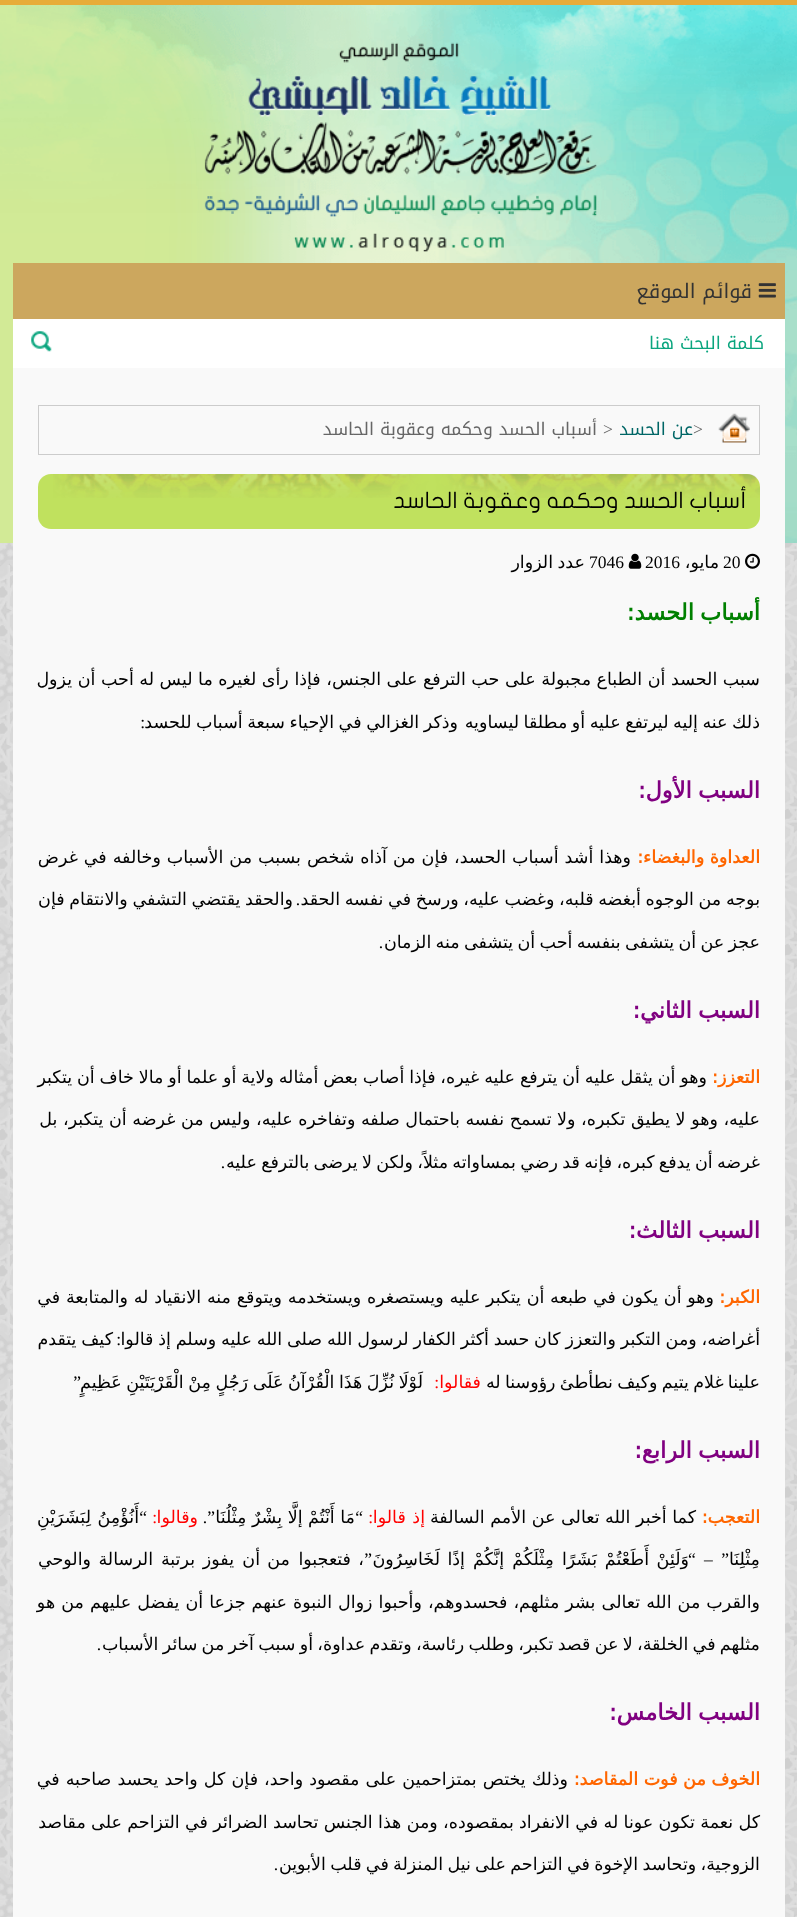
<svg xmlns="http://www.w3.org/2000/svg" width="797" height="1917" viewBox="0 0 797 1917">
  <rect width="100%" height="100%" fill="#dfdfdf"/>
  <image x="0" y="543" width="797" height="1374" href="img1.png"/>
  <rect x="0" y="5" width="797" height="538" fill="#d2ea96"/>
  <image x="16" y="5" width="781" height="538" href="img2.png"/>
  <rect x="0" y="0" width="797" height="5" fill="#e7ac39"/>
  <image x="0" y="5" width="797" height="241" href="img3.png"/>
  <image x="204" y="42" width="393" height="210" href="img4.png"/>
  <rect x="13" y="263" width="772" height="56" fill="#cca75e"/>
  <image x="758" y="283" width="18" height="15" href="img5.png"/>
  <text x="752" y="298" font-family="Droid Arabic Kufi" font-size="20" direction="rtl" fill="#333333">قوائم الموقع</text>
  <rect x="13" y="319" width="772" height="49" fill="#ffffff"/>
  <text x="764" y="349" font-family="Droid Arabic Kufi" font-size="17.5" direction="rtl" fill="#0aa57e">كلمة البحث هنا</text>
  <image x="31" y="331" width="21" height="21" href="img6.png"/>
  <rect x="13" y="368" width="772" height="1549" fill="#f9f9f9"/>
  <rect x="38.5" y="405.5" width="721" height="49" fill="none" stroke="#cccccc"/>
  <image x="718" y="413" width="32" height="30" href="img7.png"/>
  <text x="693" y="435" font-family="Liberation Serif" font-size="17.5" fill="#666666">&gt;</text>
  <text x="693" y="435" font-family="Droid Arabic Kufi" font-size="17.5" direction="rtl" fill="#006666">عن الحسد</text>
  <text x="603" y="435" font-family="Liberation Serif" font-size="17.5" fill="#666666">&gt;</text>
  <text x="597" y="435" font-family="Droid Arabic Kufi" font-size="17.5" direction="rtl" fill="#666666">أسباب الحسد وحكمه وعقوبة الحاسد</text>
  <rect x="38" y="474" width="722" height="55" rx="13" fill="#c0e15e"/>
  <image x="53" y="474" width="707" height="24" href="img8.png"/>
  <text x="747" y="508" font-family="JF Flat" font-size="22.5" direction="rtl" fill="#000000">أسباب الحسد وحكمه وعقوبة الحاسد</text>
  <image x="745" y="553" width="15" height="16" href="img9.png"/>
  <text x="723" y="568" font-family="Liberation Serif" font-size="17.5" fill="#000000">20</text>
  <text x="719" y="568" font-family="DejaVu Sans" font-size="17.5" direction="rtl" fill="#000000">مايو،</text>
  <text x="645" y="568" font-family="Liberation Serif" font-size="17.5" fill="#000000">2016</text>
  <image x="628" y="553" width="14" height="16" href="img10.png"/>
  <text x="589" y="568" font-family="Liberation Serif" font-size="17.5" fill="#000000">7046</text>
  <text x="585" y="568" word-spacing="-1" font-family="DejaVu Sans" font-size="17.5" direction="rtl" fill="#000000">عدد الزوار</text>
  <text x="760" y="620" word-spacing="-1" font-family="DejaVu Sans" font-size="22.5" font-weight="bold" direction="rtl" fill="#008000">أسباب الحسد:</text>
  <text x="760" y="685" font-family="DejaVu Sans" font-size="17.5" direction="rtl" fill="#000000">سبب الحسد أن الطباع مجبولة على حب الترفع على الجنس، فإذا رأى لغيره ما ليس له أحب أن يزول</text>
  <text x="760" y="728" word-spacing="-1" font-family="DejaVu Sans" font-size="17.5" direction="rtl" fill="#000000">ذلك عنه إليه ليرتفع عليه أو مطلقا ليساويه</text>
  <text x="458" y="728" word-spacing="-1" font-family="DejaVu Sans" font-size="17.5" direction="rtl" fill="#000000">وذكر الغزالي في الإحياء سبعة أسباب للحسد</text>
  <text x="145" y="728" font-family="Liberation Serif" font-size="17.5" direction="rtl" fill="#000000">:</text>
  <text x="760" y="798" word-spacing="-1" font-family="DejaVu Sans" font-size="22.5" font-weight="bold" direction="rtl" fill="#800080">السبب الأول:</text>
  <text x="760" y="863" font-family="DejaVu Sans" font-size="17.5" font-weight="bold" direction="rtl" fill="#ff6600">العداوة والبغضاء:</text>
  <text x="631" y="863" word-spacing="0.4" font-family="DejaVu Sans" font-size="17.5" direction="rtl" fill="#000000">وهذا أشد أسباب الحسد، فإن من آذاه شخص بسبب من الأسباب وخالفه في غرض</text>
  <text x="760" y="905" word-spacing="-0.9" font-family="DejaVu Sans" font-size="17.5" direction="rtl" fill="#000000">بوجه من الوجوه أبغضه قلبه، وغضب عليه، ورسخ في نفسه الحقد</text>
  <text x="300" y="905" font-family="Liberation Serif" font-size="17.5" direction="rtl" fill="#000000">.</text>
  <text x="293" y="905" word-spacing="-0.9" font-family="DejaVu Sans" font-size="17.5" direction="rtl" fill="#000000">والحقد يقتضي التشفي والانتقام فإن</text>
  <text x="760" y="948" word-spacing="-1.25" font-family="DejaVu Sans" font-size="17.5" direction="rtl" fill="#000000">عجز عن أن يتشفى بنفسه أحب أن يتشفى منه الزمان</text>
  <text x="383" y="948" font-family="Liberation Serif" font-size="17.5" direction="rtl" fill="#000000">.</text>
  <text x="760" y="1018" word-spacing="-1" font-family="DejaVu Sans" font-size="22.5" font-weight="bold" direction="rtl" fill="#800080">السبب الثاني:</text>
  <text x="760" y="1083" font-family="DejaVu Sans" font-size="17.5" font-weight="bold" direction="rtl" fill="#ff6600">التعزز:</text>
  <text x="707" y="1083" word-spacing="-0.7" font-family="DejaVu Sans" font-size="17.5" direction="rtl" fill="#000000">وهو أن يثقل عليه أن يترفع عليه غيره، فإذا أصاب بعض أمثاله ولاية أو علما أو مالا خاف أن يتكبر</text>
  <text x="760" y="1125" font-family="DejaVu Sans" font-size="17.5" direction="rtl" fill="#000000">عليه، وهو لا يطيق تكبره، ولا تسمح نفسه باحتمال صلفه وتفاخره عليه، وليس من غرضه أن يتكبر، بل</text>
  <text x="760" y="1168" word-spacing="-1.25" font-family="DejaVu Sans" font-size="17.5" direction="rtl" fill="#000000">غرضه أن يدفع كبره، فإنه قد رضي بمساواته مثلاً، ولكن لا يرضى بالترفع عليه</text>
  <text x="225" y="1168" font-family="Liberation Serif" font-size="17.5" direction="rtl" fill="#000000">.</text>
  <text x="760" y="1238" word-spacing="-1" font-family="DejaVu Sans" font-size="22.5" font-weight="bold" direction="rtl" fill="#800080">السبب الثالث:</text>
  <text x="760" y="1303" font-family="DejaVu Sans" font-size="17.5" font-weight="bold" direction="rtl" fill="#ff6600">الكبر:</text>
  <text x="714" y="1303" word-spacing="0.2" font-family="DejaVu Sans" font-size="17.5" direction="rtl" fill="#000000">وهو أن يكون في طبعه أن يتكبر عليه ويستصغره ويستخدمه ويتوقع منه الانقياد له والمتابعة في</text>
  <text x="760" y="1345" word-spacing="-0.75" font-family="DejaVu Sans" font-size="17.5" direction="rtl" fill="#000000">أغراضه، ومن التكبر والتعزز كان حسد أكثر الكفار لرسول الله صلى الله عليه وسلم إذ قالوا</text>
  <text x="121" y="1345" font-family="Liberation Serif" font-size="17.5" direction="rtl" fill="#000000">:</text>
  <text x="113" y="1345" word-spacing="-0.75" font-family="DejaVu Sans" font-size="17.5" direction="rtl" fill="#000000">كيف يتقدم</text>
  <text x="760" y="1388" word-spacing="-1.25" font-family="DejaVu Sans" font-size="17.5" direction="rtl" fill="#000000">علينا غلام يتيم وكيف نطأطئ رؤوسنا له</text>
  <text x="481" y="1388" font-family="DejaVu Sans" font-size="17.5" direction="rtl" fill="#ff0000">فقالوا</text>
  <text x="423" y="1388" word-spacing="-1" font-family="DejaVu Sans" font-size="17.5" direction="rtl" fill="#000000">لَوْلَا نُزِّلَ هَذَا الْقُرْآنُ عَلَى رَجُلٍ مِنْ الْقَرْيَتَيْنِ عَظِيمٍ</text>
  <text x="81" y="1388" font-family="Liberation Serif" font-size="17.5" direction="rtl" fill="#000000">”</text>
  <text x="439" y="1388" font-family="Liberation Serif" font-size="17.5" direction="rtl" fill="#ff0000">:</text>
  <text x="760" y="1458" word-spacing="-1" font-family="DejaVu Sans" font-size="22.5" font-weight="bold" direction="rtl" fill="#800080">السبب الرابع:</text>
  <text x="760" y="1523" font-family="DejaVu Sans" font-size="17.5" font-weight="bold" direction="rtl" fill="#ff6600">التعجب:</text>
  <text x="696" y="1523" font-family="DejaVu Sans" font-size="17.5" direction="rtl" fill="#000000">كما أخبر الله تعالى عن الأمم السالفة</text>
  <text x="425" y="1523" word-spacing="1" font-family="DejaVu Sans" font-size="17.5" direction="rtl" fill="#ff0000">إذ قالوا</text>
  <text x="363" y="1523" font-family="Liberation Serif" font-size="17.5" direction="rtl" fill="#000000">“</text>
  <text x="355" y="1523" font-family="DejaVu Sans" font-size="17.5" direction="rtl" fill="#000000">مَا أَنْتُمْ إلَّا بِشْرٌ مِثْلُنَا</text>
  <text x="215" y="1523" font-family="Liberation Serif" font-size="17.5" direction="rtl" fill="#000000">”.</text>
  <text x="198" y="1523" font-family="DejaVu Sans" font-size="17.5" direction="rtl" fill="#ff0000">وقالوا</text>
  <text x="147" y="1523" font-family="Liberation Serif" font-size="17.5" direction="rtl" fill="#000000">“</text>
  <text x="139" y="1523" word-spacing="1" font-family="DejaVu Sans" font-size="17.5" direction="rtl" fill="#000000">أَنُؤْمِنُ لِبَشَرَيْنِ</text>
  <text x="373" y="1523" font-family="Liberation Serif" font-size="17.5" direction="rtl" fill="#ff0000">:</text>
  <text x="157" y="1523" font-family="Liberation Serif" font-size="17.5" direction="rtl" fill="#ff0000">:</text>
  <text x="760" y="1565" font-family="DejaVu Sans" font-size="17.5" direction="rtl" fill="#000000">مِثْلِنَا</text>
  <text x="729" y="1565" word-spacing="4" font-family="Liberation Serif" font-size="17.5" direction="rtl" fill="#000000">” – “</text>
  <text x="689" y="1565" font-family="DejaVu Sans" font-size="17.5" direction="rtl" fill="#000000">وَلَئِنْ</text>
  <text x="649" y="1565" font-family="DejaVu Sans" font-size="17.5" direction="rtl" fill="#000000">أَطَعْتُمْ</text>
  <text x="597" y="1565" font-family="DejaVu Sans" font-size="17.5" direction="rtl" fill="#000000">بَشَرًا</text>
  <text x="554" y="1565" font-family="DejaVu Sans" font-size="17.5" direction="rtl" fill="#000000">مِثْلَكُمْ</text>
  <text x="504" y="1565" font-family="DejaVu Sans" font-size="17.5" direction="rtl" fill="#000000">إنَّكُمْ</text>
  <text x="465" y="1565" font-family="DejaVu Sans" font-size="17.5" direction="rtl" fill="#000000">إذًا</text>
  <text x="440" y="1565" font-family="DejaVu Sans" font-size="17.5" direction="rtl" fill="#000000">لَخَاسِرُونَ</text>
  <text x="372" y="1565" font-family="Liberation Serif" font-size="17.5" direction="rtl" fill="#000000">”</text>
  <text x="364" y="1565" font-family="DejaVu Sans" font-size="17.5" direction="rtl" fill="#000000">،</text>
  <text x="351" y="1565" font-family="DejaVu Sans" font-size="17.5" direction="rtl" fill="#000000">فتعجبوا</text>
  <text x="290" y="1565" font-family="DejaVu Sans" font-size="17.5" direction="rtl" fill="#000000">من</text>
  <text x="260" y="1565" font-family="DejaVu Sans" font-size="17.5" direction="rtl" fill="#000000">أن</text>
  <text x="234" y="1565" font-family="DejaVu Sans" font-size="17.5" direction="rtl" fill="#000000">يفوز</text>
  <text x="195" y="1565" font-family="DejaVu Sans" font-size="17.5" direction="rtl" fill="#000000">برتبة</text>
  <text x="153" y="1565" font-family="DejaVu Sans" font-size="17.5" direction="rtl" fill="#000000">الرسالة</text>
  <text x="91" y="1565" font-family="DejaVu Sans" font-size="17.5" direction="rtl" fill="#000000">والوحي</text>
  <text x="760" y="1608" word-spacing="0.5" font-family="DejaVu Sans" font-size="17.5" direction="rtl" fill="#000000">والقرب من الله تعالى بشر مثلهم، فحسدوهم، وأحبوا زوال النبوة عنهم جزعا أن يفضل عليهم من هو</text>
  <text x="760" y="1650" word-spacing="-1.25" font-family="DejaVu Sans" font-size="17.5" direction="rtl" fill="#000000">مثلهم في الخلقة، لا عن قصد تكبر، وطلب رئاسة، وتقدم عداوة، أو سبب آخر من سائر الأسباب</text>
  <text x="101" y="1650" font-family="Liberation Serif" font-size="17.5" direction="rtl" fill="#000000">.</text>
  <text x="760" y="1720" word-spacing="-1" font-family="DejaVu Sans" font-size="22.5" font-weight="bold" direction="rtl" fill="#800080">السبب الخامس:</text>
  <text x="760" y="1785" font-family="DejaVu Sans" font-size="17.5" font-weight="bold" direction="rtl" fill="#ff6600">الخوف من فوت المقاصد:</text>
  <text x="568" y="1785" word-spacing="0.5" font-family="DejaVu Sans" font-size="17.5" direction="rtl" fill="#000000">وذلك يختص بمتزاحمين على مقصود واحد، فإن كل واحد يحسد صاحبه في</text>
  <text x="760" y="1828" word-spacing="-0.25" font-family="DejaVu Sans" font-size="17.5" direction="rtl" fill="#000000">كل نعمة تكون عونا له في الانفراد بمقصوده، ومن هذا الجنس تحاسد الضرائر في التزاحم على مقاصد</text>
  <text x="760" y="1870" word-spacing="-1.25" font-family="DejaVu Sans" font-size="17.5" direction="rtl" fill="#000000">الزوجية، وتحاسد الإخوة في التزاحم على نيل المنزلة في قلب الأبوين</text>
  <text x="278" y="1870" font-family="Liberation Serif" font-size="17.5" direction="rtl" fill="#000000">.</text>
</svg>
